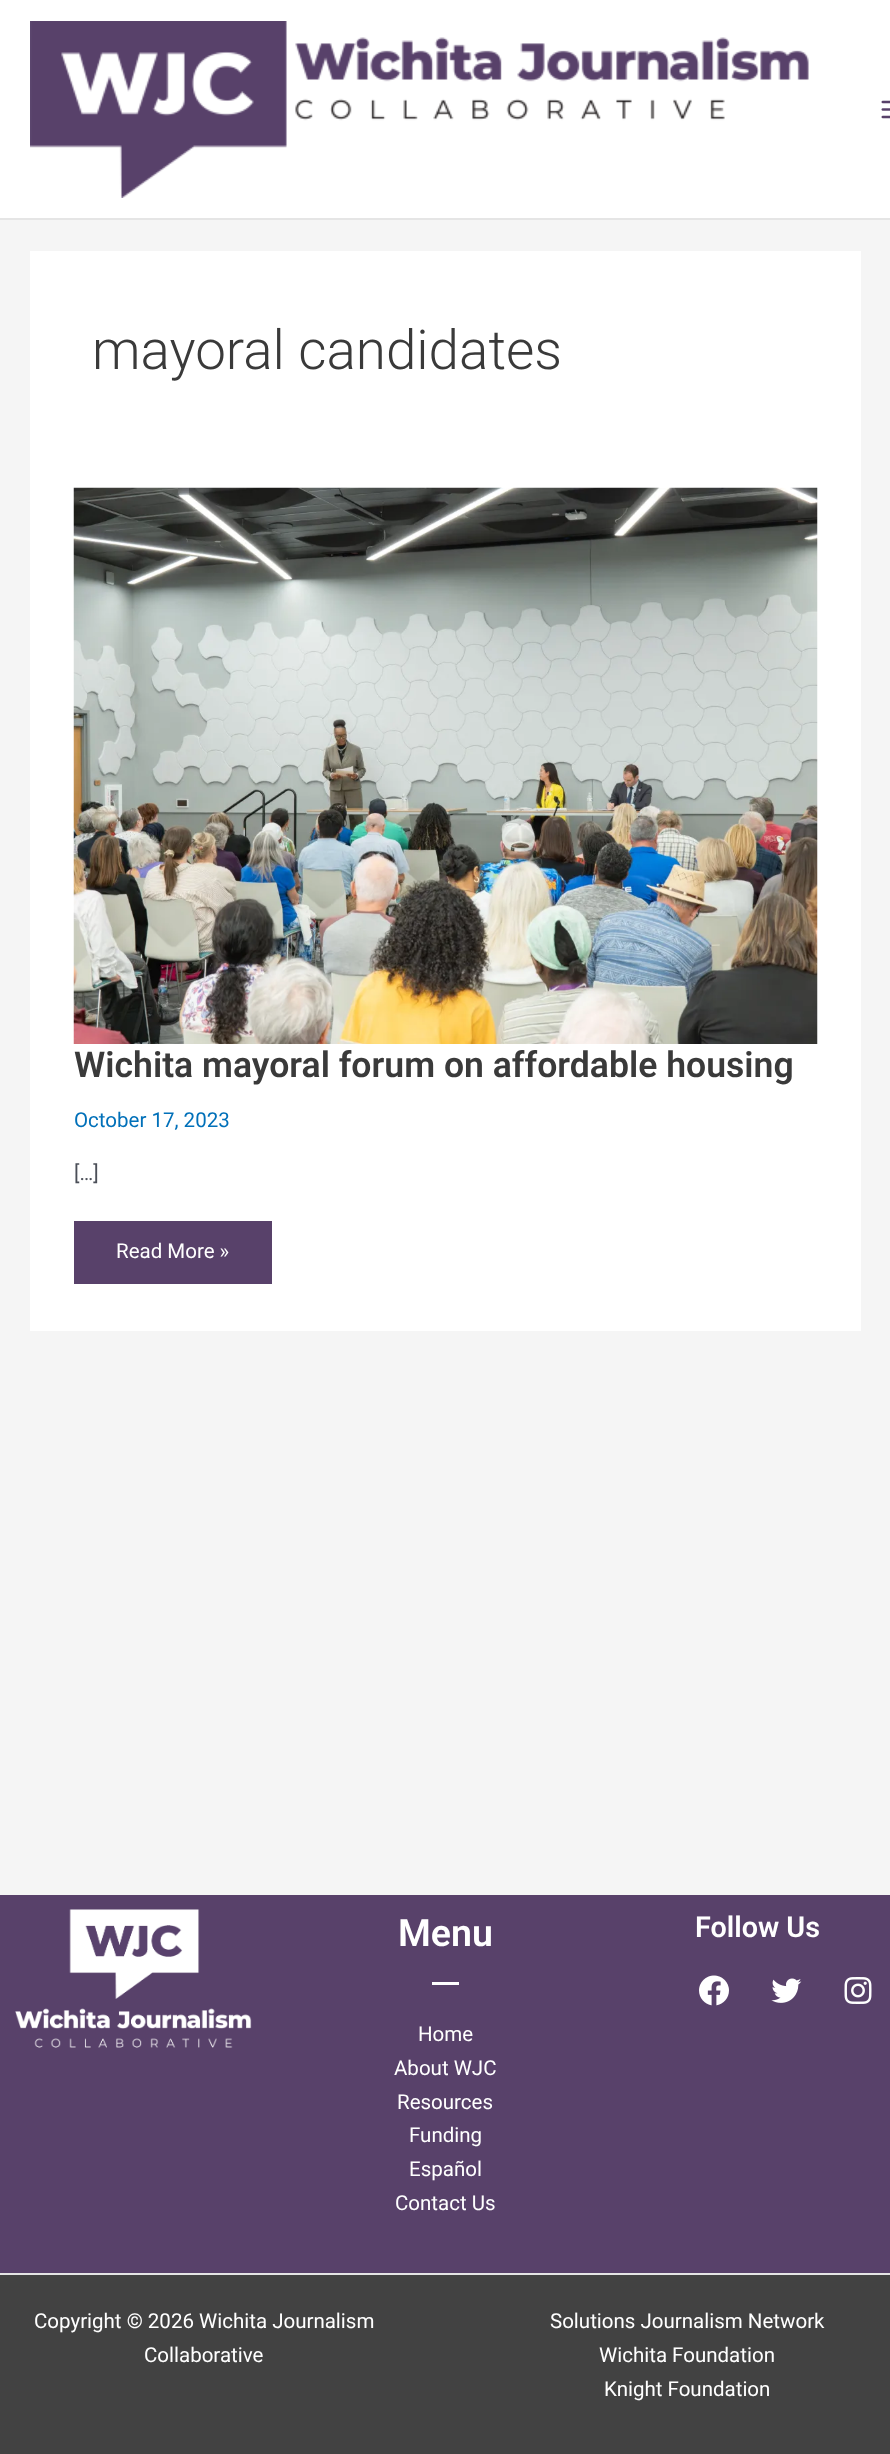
<svg xmlns="http://www.w3.org/2000/svg" width="890" height="2454" viewBox="0 0 890 2454">
  <rect width="100%" height="100%" fill="#f5f5f5"/>
  <rect x="0" y="0" width="890" height="218" fill="#ffffff"/>
  <rect x="0" y="218" width="890" height="2" fill="#e5e5e5"/>
  <image x="30" y="21" width="779" height="177" href="img1.png"/>
  <image x="881" y="100" width="9" height="19" href="img2.png"/>
  <rect x="30" y="251" width="831" height="1080" fill="#ffffff"/>
  <text x="92" y="369" font-family="Roboto" font-size="54.75" font-weight="300" fill="#3a3a3a">mayoral candidates</text>
  <image x="73" y="487" width="745" height="557" href="img3.png"/>
  <text x="74" y="1077" font-family="Roboto" font-size="35.6" font-weight="600" fill="#3a3a3a">Wichita mayoral forum on affordable housing</text>
  <text x="74" y="1127" font-family="Roboto" font-size="20.5" fill="#0170b9">October 17, 2023</text>
  <text x="74" y="1180" font-family="Roboto" font-size="20.5" fill="#4b4f58">[…]</text>
  <rect x="74" y="1221" width="198" height="63" fill="#58416a"/>
  <text x="116" y="1258" font-family="Roboto" font-size="20.5" fill="#ffffff">Read More »</text>
  <rect x="0" y="1895" width="890" height="378" fill="#58416a"/>
  <image x="15" y="1909" width="237" height="139" href="img4.png"/>
  <text x="398" y="1946" font-family="Roboto" font-size="37.5" font-weight="600" fill="#ffffff">Menu</text>
  <rect x="432" y="1982" width="27" height="3" fill="#ffffff"/>
  <text x="418" y="2041" font-family="Roboto" font-size="20.5" fill="#ffffff">Home</text>
  <text x="394" y="2075" font-family="Roboto" font-size="20.5" fill="#ffffff">About WJC</text>
  <text x="397" y="2109" font-family="Roboto" font-size="20.5" fill="#ffffff">Resources</text>
  <text x="409" y="2142" font-family="Roboto" font-size="20.5" fill="#ffffff">Funding</text>
  <text x="409" y="2176" font-family="Roboto" font-size="20.5" fill="#ffffff">Español</text>
  <text x="395" y="2210" font-family="Roboto" font-size="20.5" fill="#ffffff">Contact Us</text>
  <text x="695" y="1937" font-family="Roboto" font-size="28.75" font-weight="600" fill="#ffffff">Follow Us</text>
  <image x="699" y="1975" width="30" height="31" href="img5.png"/>
  <image x="771" y="1978" width="31" height="25" href="img6.png"/>
  <image x="844" y="1977" width="28" height="27" href="img7.png"/>
  <rect x="0" y="2275" width="890" height="179" fill="#424242"/>
  <rect x="0" y="2273" width="890" height="2" fill="#e5e5e5"/>
  <text x="34" y="2328" font-family="Roboto" font-size="20.5" fill="#ffffff">Copyright © 2026 Wichita Journalism</text>
  <text x="144" y="2362" font-family="Roboto" font-size="20.5" fill="#ffffff">Collaborative</text>
  <text x="550" y="2328" font-family="Roboto" font-size="20.5" fill="#ffffff">Solutions Journalism Network</text>
  <text x="599" y="2362" font-family="Roboto" font-size="20.5" fill="#ffffff">Wichita Foundation</text>
  <text x="604" y="2396" font-family="Roboto" font-size="20.5" fill="#ffffff">Knight Foundation</text>
</svg>
